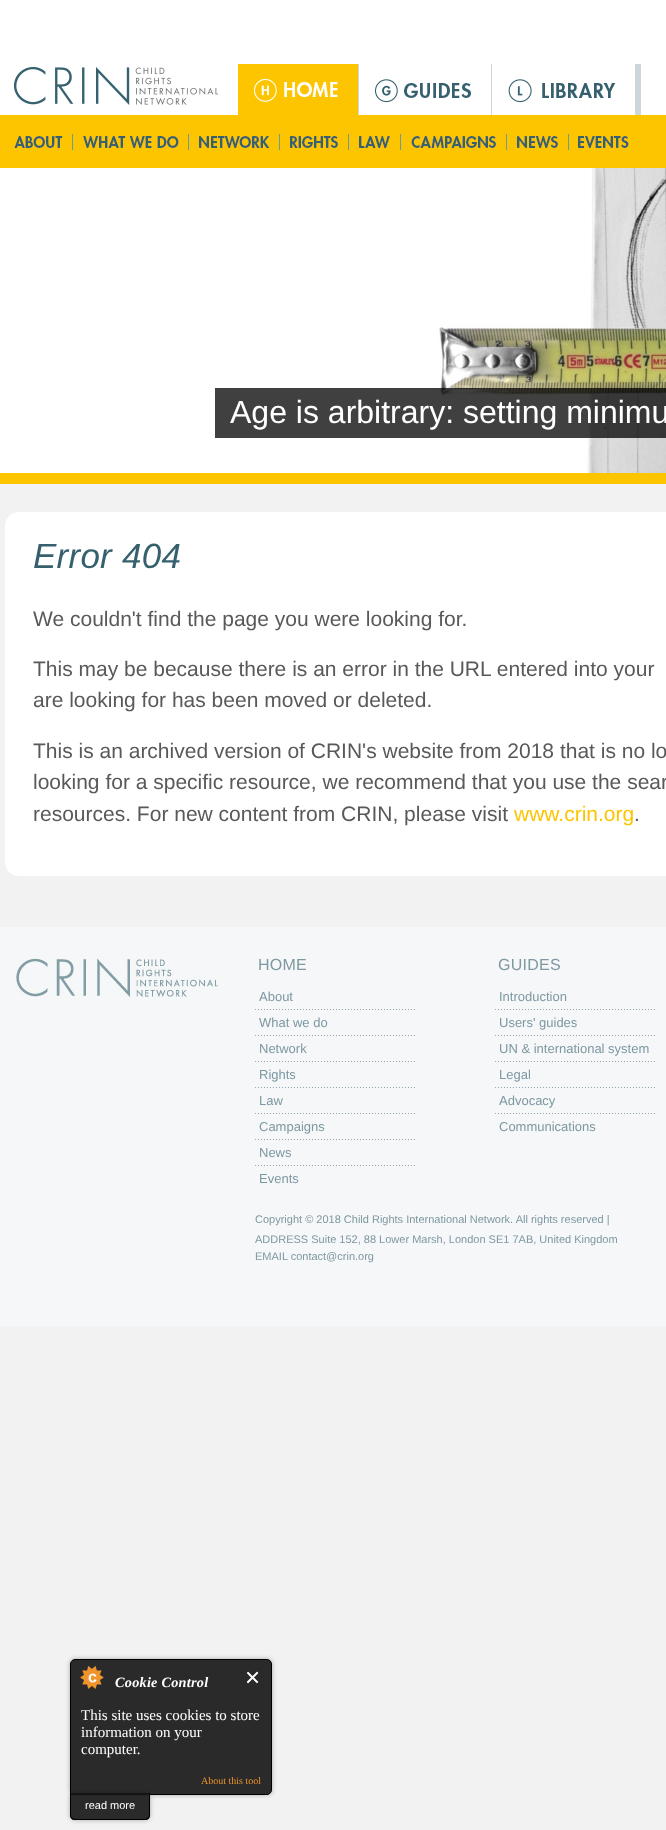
<svg xmlns="http://www.w3.org/2000/svg" width="666" height="1830" viewBox="0 0 666 1830">
  <defs>
    <clipPath id="clip1"><path d="M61 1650H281V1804H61ZM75 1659H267C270 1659 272 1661 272 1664V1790C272 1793 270 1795 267 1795H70V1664C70 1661 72 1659 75 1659Z" clip-rule="evenodd"/></clipPath>
    <filter id="blur1" x="-50%" y="-200%" width="200%" height="500%"><feGaussianBlur stdDeviation="2.5"/></filter>
    <clipPath id="clip2"><path d="M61 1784H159V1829H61ZM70 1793H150V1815C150 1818 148 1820 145 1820H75C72 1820 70 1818 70 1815Z" clip-rule="evenodd"/></clipPath>
  </defs>
  <rect width="100%" height="100%" fill="#f2f2f2"/>
  <image x="0" y="0" width="666" height="473" href="img13.png"/>
  <rect x="592" y="54" width="74" height="61" fill="#ffffff"/>
  <rect x="358" y="64" width="1" height="51" fill="#cdd7db"/>
  <rect x="238" y="64" width="120" height="51" fill="#fdc500"/>
  <image x="254" y="79" width="84" height="23" href="img1.png"/>
  <rect x="491" y="64" width="1" height="51" fill="#cdd7db"/>
  <image x="375" y="79" width="96" height="24" href="img2.png"/>
  <rect x="635" y="64" width="6" height="51" fill="#cdd7db"/>
  <image x="508" y="79" width="108" height="24" href="img3.png"/>
  <rect x="0" y="115" width="666" height="53" fill="#fdc500"/>
  <image x="14" y="134" width="59" height="16" href="img4.png"/>
  <image x="83" y="134" width="106" height="16" href="img5.png"/>
  <image x="199" y="134" width="81" height="16" href="img6.png"/>
  <image x="290" y="134" width="59" height="16" href="img7.png"/>
  <image x="359" y="134" width="42" height="16" href="img8.png"/>
  <image x="411" y="134" width="96" height="16" href="img9.png"/>
  <image x="517" y="134" width="52" height="16" href="img10.png"/>
  <image x="578" y="136" width="51" height="12" href="img11.png"/>
  <image x="14" y="67" width="204" height="38" href="img12.png"/>
  <rect x="215" y="388" width="451" height="50" fill="#000000" fill-opacity="0.75"/>
  <text x="230" y="423" font-family="Liberation Sans" font-size="32" fill="#ffffff">Age is arbitrary: setting minimu</text>
  <rect x="0" y="473" width="666" height="11" fill="#fdc500"/>
  <rect x="5" y="512" width="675" height="364" rx="14" fill="#ffffff"/>
  <text x="33" y="568" font-family="Liberation Sans" font-size="35" font-style="italic" letter-spacing="0.25" fill="#36606e">Error 404</text>
  <text x="33" y="626" font-family="Liberation Sans" font-size="21" fill="#58595b">We couldn't find the page you were looking for.</text>
  <text x="33" y="676" font-family="Liberation Sans" font-size="21" fill="#58595b">This may be because there is an error in the URL entered into your</text>
  <text x="33" y="707" font-family="Liberation Sans" font-size="21" fill="#58595b">are looking for has been moved or deleted.</text>
  <text x="33" y="758" font-family="Liberation Sans" font-size="21" fill="#58595b">This is an archived version of CRIN's website from 2018 that is no lo</text>
  <text x="33" y="789" font-family="Liberation Sans" font-size="21" fill="#58595b">looking for a specific resource, we recommend that you use the sear</text>
  <text x="33" y="821" font-family="Liberation Sans" font-size="21" fill="#58595b">resources. For new content from CRIN, please visit</text>
  <text x="514" y="821" font-family="Liberation Sans" font-size="21" fill="#fdc500">www.crin.org</text>
  <text x="634" y="821" font-family="Liberation Sans" font-size="21" fill="#58595b">.</text>
  <rect x="0" y="927" width="666" height="399" fill="#f6f7f9"/>
  <image x="16" y="958" width="202" height="39" href="img14.png"/>
  <text x="258" y="970" font-family="Liberation Sans" font-size="16" letter-spacing="0.25" fill="#7d98a1">HOME</text>
  <image x="255" y="1009" width="160" height="1" href="img15.png"/>
  <text x="259" y="1001" font-family="Liberation Sans" font-size="13" fill="#7d98a1">About</text>
  <image x="255" y="1035" width="160" height="1" href="img15.png"/>
  <text x="259" y="1027" font-family="Liberation Sans" font-size="13" fill="#7d98a1">What we do</text>
  <image x="255" y="1061" width="160" height="1" href="img15.png"/>
  <text x="259" y="1053" font-family="Liberation Sans" font-size="13" fill="#7d98a1">Network</text>
  <image x="255" y="1087" width="160" height="1" href="img15.png"/>
  <text x="259" y="1079" font-family="Liberation Sans" font-size="13" fill="#7d98a1">Rights</text>
  <image x="255" y="1113" width="160" height="1" href="img15.png"/>
  <text x="259" y="1105" font-family="Liberation Sans" font-size="13" fill="#7d98a1">Law</text>
  <image x="255" y="1139" width="160" height="1" href="img15.png"/>
  <text x="259" y="1131" font-family="Liberation Sans" font-size="13" fill="#7d98a1">Campaigns</text>
  <image x="255" y="1165" width="160" height="1" href="img15.png"/>
  <text x="259" y="1157" font-family="Liberation Sans" font-size="13" fill="#7d98a1">News</text>
  <text x="259" y="1183" font-family="Liberation Sans" font-size="13" fill="#7d98a1">Events</text>
  <text x="498" y="970" font-family="Liberation Sans" font-size="16" letter-spacing="0.25" fill="#7d98a1">GUIDES</text>
  <image x="495" y="1009" width="160" height="1" href="img15.png"/>
  <text x="499" y="1001" font-family="Liberation Sans" font-size="13" fill="#7d98a1">Introduction</text>
  <image x="495" y="1035" width="160" height="1" href="img15.png"/>
  <text x="499" y="1027" font-family="Liberation Sans" font-size="13" fill="#7d98a1">Users' guides</text>
  <image x="495" y="1061" width="160" height="1" href="img15.png"/>
  <text x="499" y="1053" font-family="Liberation Sans" font-size="13" fill="#7d98a1">UN &amp; international system</text>
  <image x="495" y="1087" width="160" height="1" href="img15.png"/>
  <text x="499" y="1079" font-family="Liberation Sans" font-size="13" fill="#7d98a1">Legal</text>
  <image x="495" y="1113" width="160" height="1" href="img15.png"/>
  <text x="499" y="1105" font-family="Liberation Sans" font-size="13" fill="#7d98a1">Advocacy</text>
  <text x="499" y="1131" font-family="Liberation Sans" font-size="13" fill="#7d98a1">Communications</text>
  <text x="255" y="1223" font-family="Liberation Sans" font-size="11" fill="#7d98a1">Copyright © 2018 Child Rights International Network. All rights reserved |</text>
  <text x="255" y="1243" font-family="Liberation Sans" font-size="11" fill="#7d98a1">ADDRESS Suite 152, 88 Lower Marsh, London SE1 7AB, United Kingdom</text>
  <text x="255" y="1260" font-family="Liberation Sans" font-size="11" fill="#7d98a1">EMAIL contact@crin.org</text>
  <g clip-path="url(#clip1)">
    <rect x="70" y="1659" width="202" height="136" rx="5" fill="#000000" fill-opacity="0.3" filter="url(#blur1)"/>
  </g>
  <path d="M75 1659.5H267C269.5 1659.5 271.5 1661.5 271.5 1664V1790C271.5 1792.5 269.5 1794.5 267 1794.5H70.5V1664C70.5 1661.5 72.5 1659.5 75 1659.5Z" fill="#141414" fill-opacity="0.9" stroke="#000000"/>
  <image x="80" y="1666" width="24" height="23" href="img16.png"/>
  <text x="115" y="1687" font-family="Liberation Serif" font-size="14.25" font-weight="bold" font-style="italic" letter-spacing="0.25" fill="#ffffff">Cookie Control</text>
  <image x="247" y="1671" width="12" height="13" href="img17.png"/>
  <text x="81" y="1720" font-family="Liberation Serif" font-size="15" fill="#ffffff">This site uses cookies to store</text>
  <text x="81" y="1737" font-family="Liberation Serif" font-size="15" fill="#ffffff">information on your</text>
  <text x="81" y="1754" font-family="Liberation Serif" font-size="15" fill="#ffffff">computer.</text>
  <text x="201" y="1784" font-family="Liberation Serif" font-size="10" fill="#f0942b">About this tool</text>
  <g clip-path="url(#clip2)">
    <rect x="70" y="1793" width="80" height="27" rx="5" fill="#000000" fill-opacity="0.3" filter="url(#blur1)"/>
  </g>
  <path d="M70 1793H150V1815C150 1818 148 1820 145 1820H75C72 1820 70 1818 70 1815Z" fill="#141414" fill-opacity="0.9"/>
  <path d="M70 1793H150V1815C150 1818 148 1820 145 1820H75C72 1820 70 1818 70 1815ZM71 1793H149V1815C149 1817 147 1819 145 1819H75C73 1819 71 1817 71 1815Z" fill="#000000" fill-rule="evenodd"/>
  <text x="85" y="1809" font-family="Liberation Sans" font-size="11" fill="#ffffff">read more</text>
</svg>
